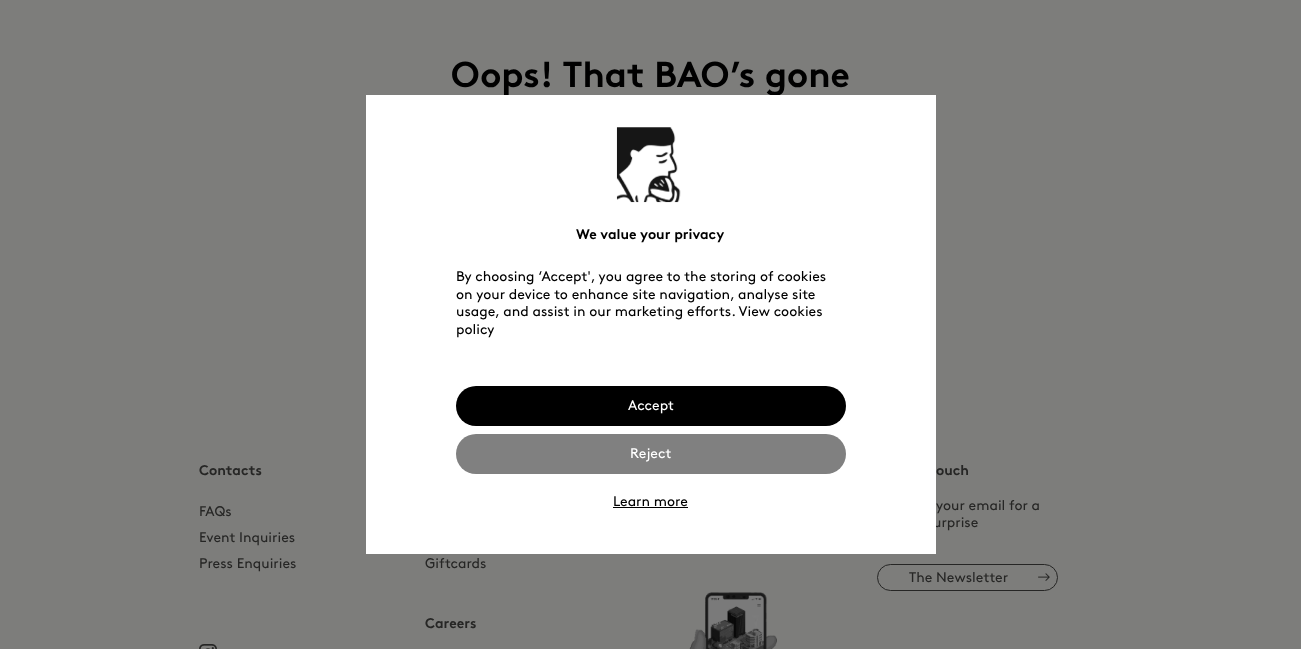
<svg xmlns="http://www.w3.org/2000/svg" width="1301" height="649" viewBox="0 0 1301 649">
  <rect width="100%" height="100%" fill="#7d7d7b"/>
  <text x="451" y="87" font-family="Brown" font-size="36" font-weight="bold" fill="#000000">Oops! That BAO’s gone</text>
  <text x="933" y="527" font-family="Brown" font-size="14" fill="#262625">urprise</text>
  <rect x="366" y="95" width="570" height="459" fill="#ffffff"/>
  <image x="616" y="127" width="65" height="76" href="img1.png"/>
  <text x="576" y="239" font-family="Brown" font-size="14" font-weight="bold" fill="#000000">We value your privacy</text>
  <text x="456" y="281" font-family="Brown" font-size="14" fill="#000000">By choosing ‘Accept', you agree to the storing of cookies</text>
  <text x="456" y="299" font-family="Brown" font-size="14" fill="#000000">on your device to enhance site navigation, analyse site</text>
  <text x="456" y="316" font-family="Brown" font-size="14" fill="#000000">usage, and assist in our marketing efforts. View cookies</text>
  <text x="456" y="334" font-family="Brown" font-size="14" fill="#000000">policy</text>
  <rect x="456" y="386" width="390" height="40" rx="20" fill="#000000"/>
  <text x="628" y="410" font-family="Brown" font-size="14" fill="#ffffff">Accept</text>
  <rect x="456" y="434" width="390" height="40" rx="20" fill="#808080"/>
  <text x="630" y="458" font-family="Brown" font-size="14" fill="#ffffff">Reject</text>
  <text x="613" y="506" font-family="Brown" font-size="14" fill="#000000">Learn more</text>
  <rect x="613" y="507" width="75" height="1" fill="#000000"/>
  <text x="199" y="475" font-family="Brown" font-size="14" font-weight="bold" fill="#262625">Contacts</text>
  <text x="199" y="516" font-family="Brown" font-size="14" fill="#262625">FAQs</text>
  <text x="199" y="542" font-family="Brown" font-size="14" fill="#262625">Event Inquiries</text>
  <text x="199" y="568" font-family="Brown" font-size="14" fill="#262625">Press Enquiries</text>
  <image x="199" y="644" width="18" height="5" href="img2.png"/>
  <text x="936" y="475" font-family="Brown" font-size="14" font-weight="bold" fill="#262625">ouch</text>
  <text x="936" y="510" font-family="Brown" font-size="14" fill="#262625">your email for a</text>
  <rect x="877.5" y="564.5" width="180" height="26" rx="13" fill="none" stroke="#262625"/>
  <text x="909" y="582" font-family="Brown" font-size="14" fill="#262625">The Newsletter</text>
  <image x="1038" y="573" width="12" height="8" href="img3.png"/>
  <text x="425" y="568" font-family="Brown" font-size="14" fill="#262625">Giftcards</text>
  <text x="425" y="628" font-family="Brown" font-size="14" font-weight="bold" fill="#262625">Careers</text>
  <image x="689" y="592" width="88" height="57" href="img4.png"/>
</svg>
